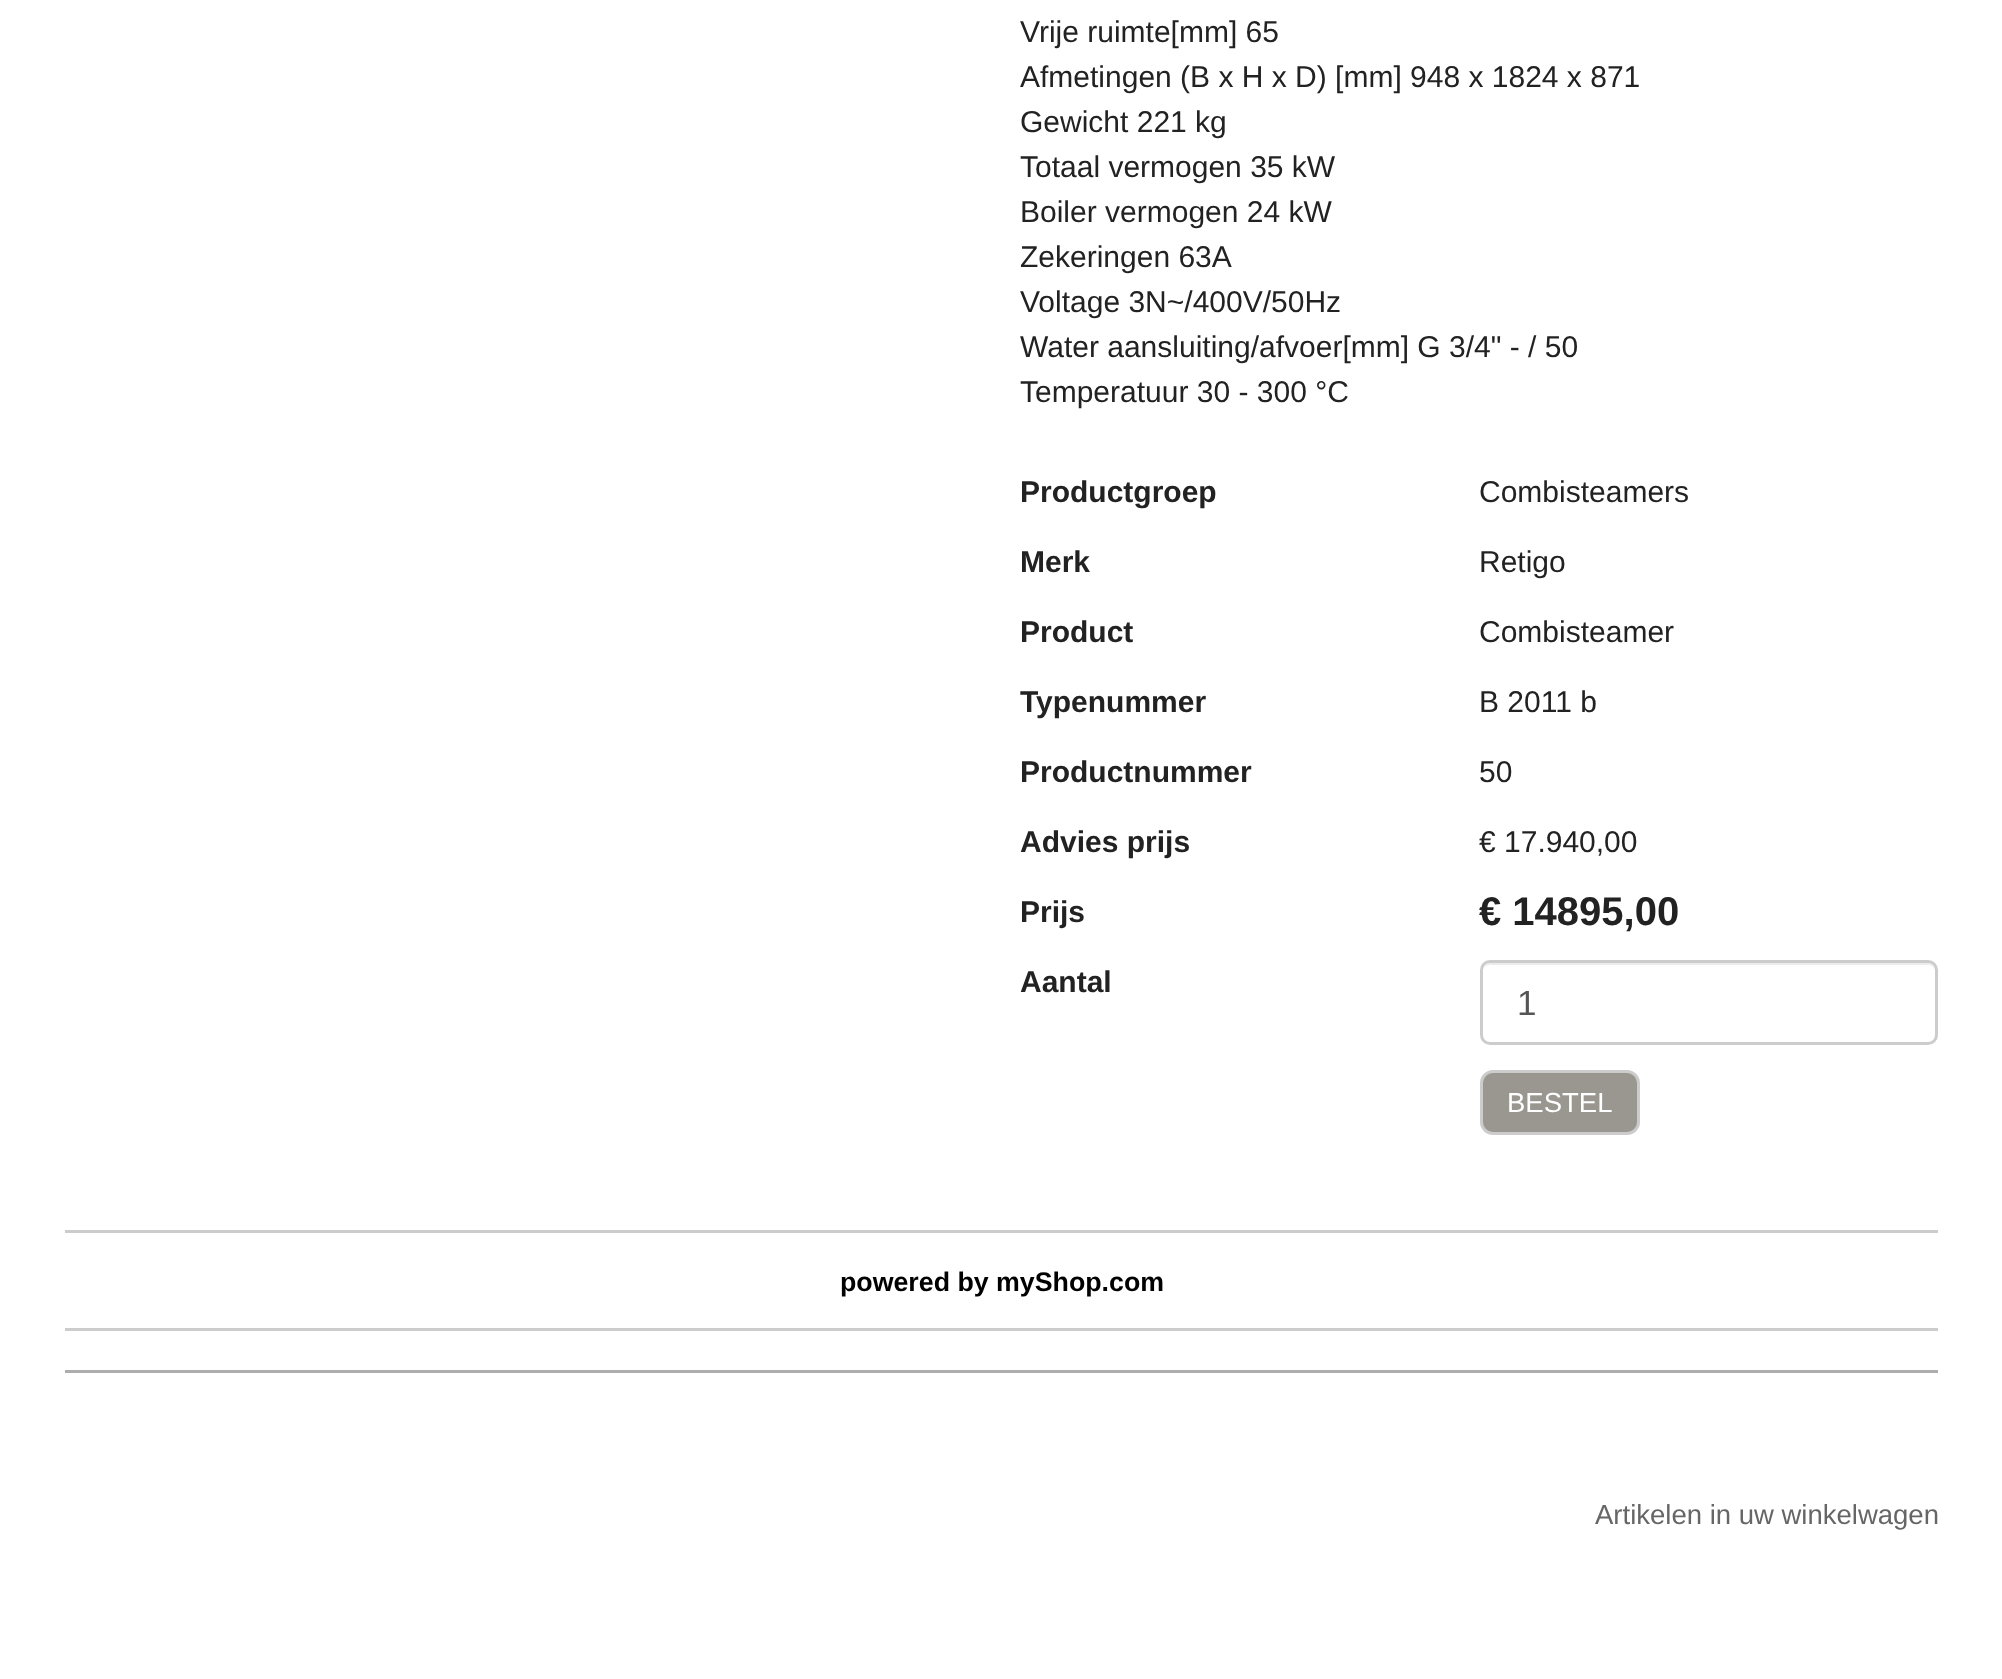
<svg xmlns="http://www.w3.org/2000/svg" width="2002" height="1679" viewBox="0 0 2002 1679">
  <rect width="100%" height="100%" fill="#ffffff"/>
  <text x="1020" y="42" font-family="Liberation Sans" font-size="30" fill="#222222">Vrije ruimte[mm] 65</text>
  <text x="1020" y="87" font-family="Liberation Sans" font-size="30" fill="#222222">Afmetingen (B x H x D) [mm] 948 x 1824 x 871</text>
  <text x="1020" y="132" font-family="Liberation Sans" font-size="30" fill="#222222">Gewicht 221 kg</text>
  <text x="1020" y="177" font-family="Liberation Sans" font-size="30" fill="#222222">Totaal vermogen 35 kW</text>
  <text x="1020" y="222" font-family="Liberation Sans" font-size="30" fill="#222222">Boiler vermogen 24 kW</text>
  <text x="1020" y="267" font-family="Liberation Sans" font-size="30" fill="#222222">Zekeringen 63A</text>
  <text x="1020" y="312" font-family="Liberation Sans" font-size="30" fill="#222222">Voltage 3N~/400V/50Hz</text>
  <text x="1020" y="357" font-family="Liberation Sans" font-size="30" fill="#222222">Water aansluiting/afvoer[mm] G 3/4" - / 50</text>
  <text x="1020" y="402" font-family="Liberation Sans" font-size="30" fill="#222222">Temperatuur 30 - 300 °C</text>
  <text x="1020" y="502" font-family="Liberation Sans" font-size="30" font-weight="bold" fill="#222222">Productgroep</text>
  <text x="1479" y="502" font-family="Liberation Sans" font-size="30" fill="#222222">Combisteamers</text>
  <text x="1020" y="572" font-family="Liberation Sans" font-size="30" font-weight="bold" fill="#222222">Merk</text>
  <text x="1479" y="572" font-family="Liberation Sans" font-size="30" fill="#222222">Retigo</text>
  <text x="1020" y="642" font-family="Liberation Sans" font-size="30" font-weight="bold" fill="#222222">Product</text>
  <text x="1479" y="642" font-family="Liberation Sans" font-size="30" fill="#222222">Combisteamer</text>
  <text x="1020" y="712" font-family="Liberation Sans" font-size="30" font-weight="bold" fill="#222222">Typenummer</text>
  <text x="1479" y="712" font-family="Liberation Sans" font-size="30" fill="#222222">B 2011 b</text>
  <text x="1020" y="782" font-family="Liberation Sans" font-size="30" font-weight="bold" fill="#222222">Productnummer</text>
  <text x="1479" y="782" font-family="Liberation Sans" font-size="30" fill="#222222">50</text>
  <text x="1020" y="852" font-family="Liberation Sans" font-size="30" font-weight="bold" fill="#222222">Advies prijs</text>
  <text x="1479" y="852" font-family="Liberation Sans" font-size="30" fill="#222222">€ 17.940,00</text>
  <text x="1020" y="922" font-family="Liberation Sans" font-size="30" font-weight="bold" fill="#222222">Prijs</text>
  <text x="1479" y="925" font-family="Liberation Sans" font-size="40" font-weight="bold" fill="#222222">€ 14895,00</text>
  <text x="1020" y="992" font-family="Liberation Sans" font-size="30" font-weight="bold" fill="#222222">Aantal</text>
  <path d="M1490 965H1928C1932 965 1935 968 1935 972C1935 967 1932 963 1927 963H1491C1488 963 1485 965 1484 968C1485 966 1488 965 1490 965Z" fill="#ececec"/>
  <rect x="1481.5" y="961.5" width="455" height="82" rx="8.5" fill="none" stroke="#cccccc" stroke-width="3"/>
  <text x="1517" y="1015" font-family="Liberation Sans" font-size="35" fill="#555555">1</text>
  <rect x="1481.5" y="1071.5" width="157" height="62" rx="11.5" fill="#9a9790" stroke="#cccccc" stroke-width="3"/>
  <text x="1507" y="1112" font-family="Liberation Sans" font-size="27.5" fill="#ffffff">BESTEL</text>
  <rect x="65" y="1230" width="1873" height="3" fill="#cccccc"/>
  <rect x="65" y="1328" width="1873" height="3" fill="#cccccc"/>
  <text x="840" y="1291" font-family="Liberation Sans" font-size="26.75" font-weight="bold" fill="#000000">powered by myShop.com</text>
  <rect x="65" y="1370" width="1873" height="3" fill="#adadad"/>
  <text x="1595" y="1524" font-family="Liberation Sans" font-size="27.5" fill="#666666">Artikelen in uw winkelwagen</text>
</svg>
